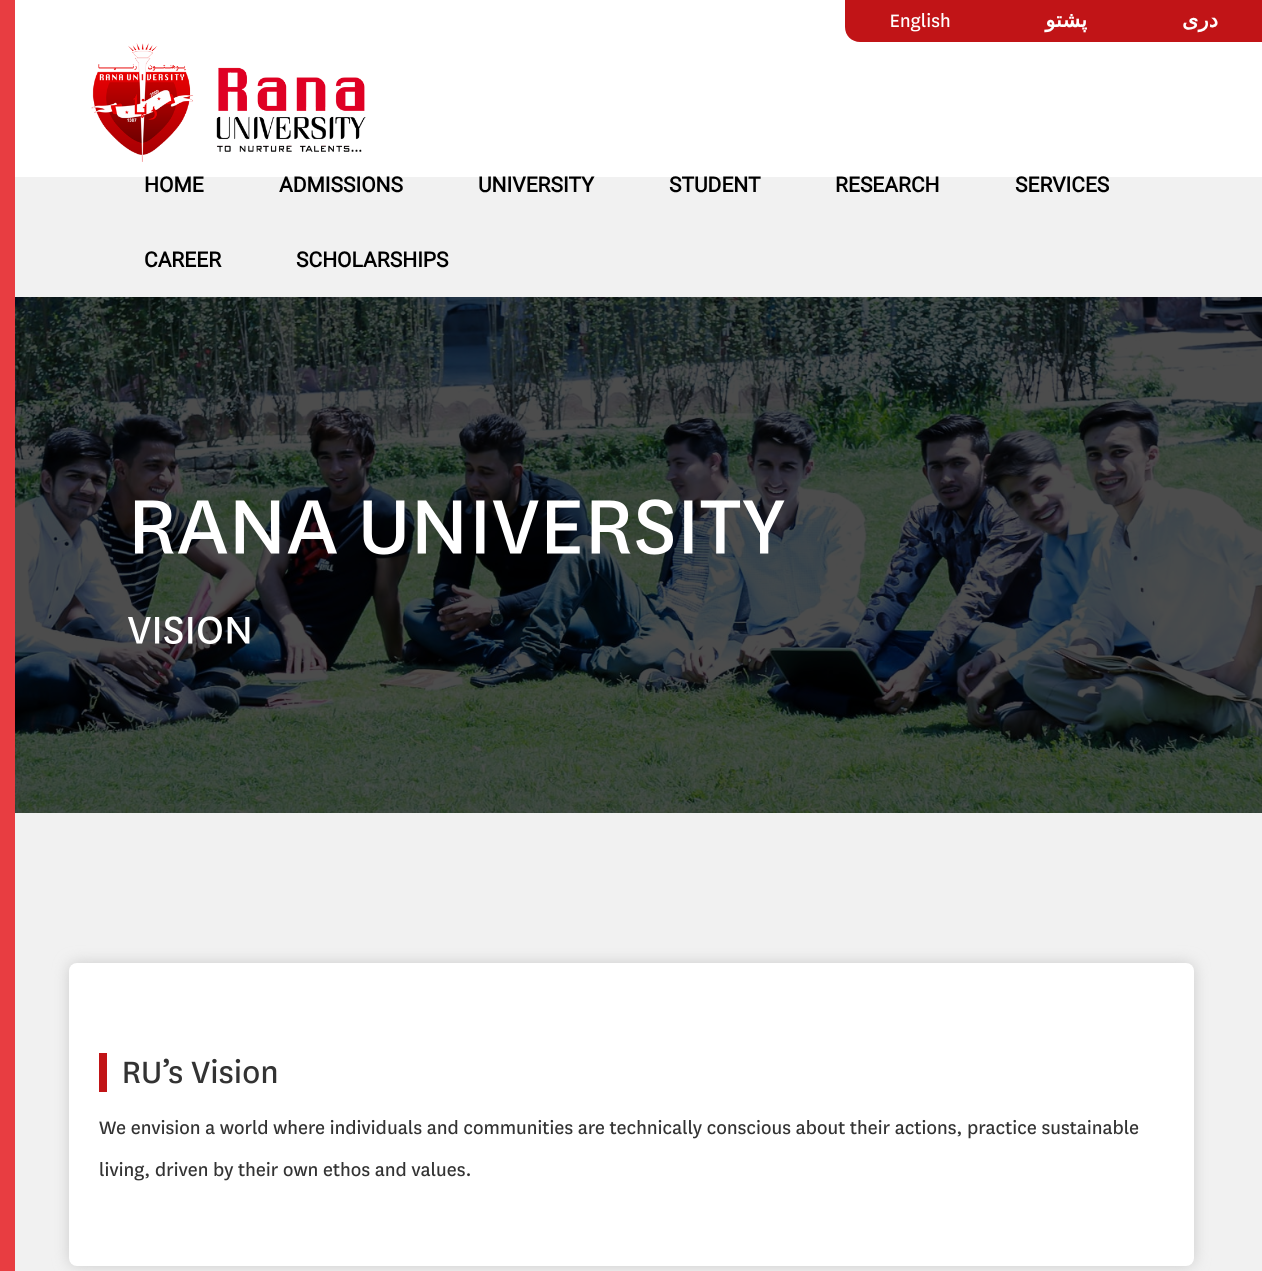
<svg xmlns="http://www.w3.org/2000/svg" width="1262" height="1271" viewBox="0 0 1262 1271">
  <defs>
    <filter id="blur1" x="-50%" y="-200%" width="200%" height="500%"><feGaussianBlur stdDeviation="7.5"/></filter>
  </defs>
  <rect width="100%" height="100%" fill="#f1f1f1"/>
  <rect x="0" y="0" width="15" height="1271" fill="#e83d41"/>
  <rect x="15" y="0" width="845" height="42" fill="#ffffff"/>
  <path d="M845 0H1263V42H860C851.5 42 845 35.5 845 27Z" fill="#c11417"/>
  <image x="891" y="12" width="59" height="20" href="img1.png"/>
  <text x="1087" y="27" font-family="DejaVu Sans" font-size="21" font-weight="bold" direction="rtl" fill="#ffffff">پشتو</text>
  <text x="1218" y="27" font-family="DejaVu Sans" font-size="21" font-weight="bold" direction="rtl" fill="#ffffff">دری</text>
  <rect x="15" y="42" width="1247" height="135" fill="#ffffff"/>
  <image x="91" y="43" width="275" height="119" href="img2.png"/>
  <text x="144" y="192" font-family="Roboto" font-size="21" font-weight="bold" fill="#000000">HOME</text>
  <text x="279" y="192" font-family="Roboto" font-size="21" font-weight="bold" fill="#000000">ADMISSIONS</text>
  <text x="478" y="192" font-family="Roboto" font-size="21" font-weight="bold" fill="#000000">UNIVERSITY</text>
  <text x="669" y="192" font-family="Roboto" font-size="21" font-weight="bold" fill="#000000">STUDENT</text>
  <text x="835" y="192" font-family="Roboto" font-size="21" font-weight="bold" fill="#000000">RESEARCH</text>
  <text x="1015" y="192" font-family="Roboto" font-size="21" font-weight="bold" fill="#000000">SERVICES</text>
  <text x="144" y="267" font-family="Roboto" font-size="21" font-weight="bold" fill="#000000">CAREER</text>
  <text x="296" y="267" font-family="Roboto" font-size="21" font-weight="bold" fill="#000000">SCHOLARSHIPS</text>
  <image x="15" y="297" width="1247" height="516" href="img3.png"/>
  <image x="134" y="499" width="651" height="56" href="img4.png"/>
  <image x="128" y="616" width="122" height="28" href="img5.png"/>
  <rect x="69" y="963" width="1125" height="303" rx="8" fill="#cccccc" filter="url(#blur1)"/>
  <rect x="69" y="963" width="1125" height="303" rx="8" fill="#ffffff"/>
  <rect x="99" y="1053" width="8" height="39" fill="#c11417"/>
  <image x="124" y="1058" width="153" height="26" href="img6.png"/>
  <image x="99" y="1119" width="1040" height="20" href="img7.png"/>
  <image x="100" y="1161" width="370" height="20" href="img8.png"/>
</svg>
